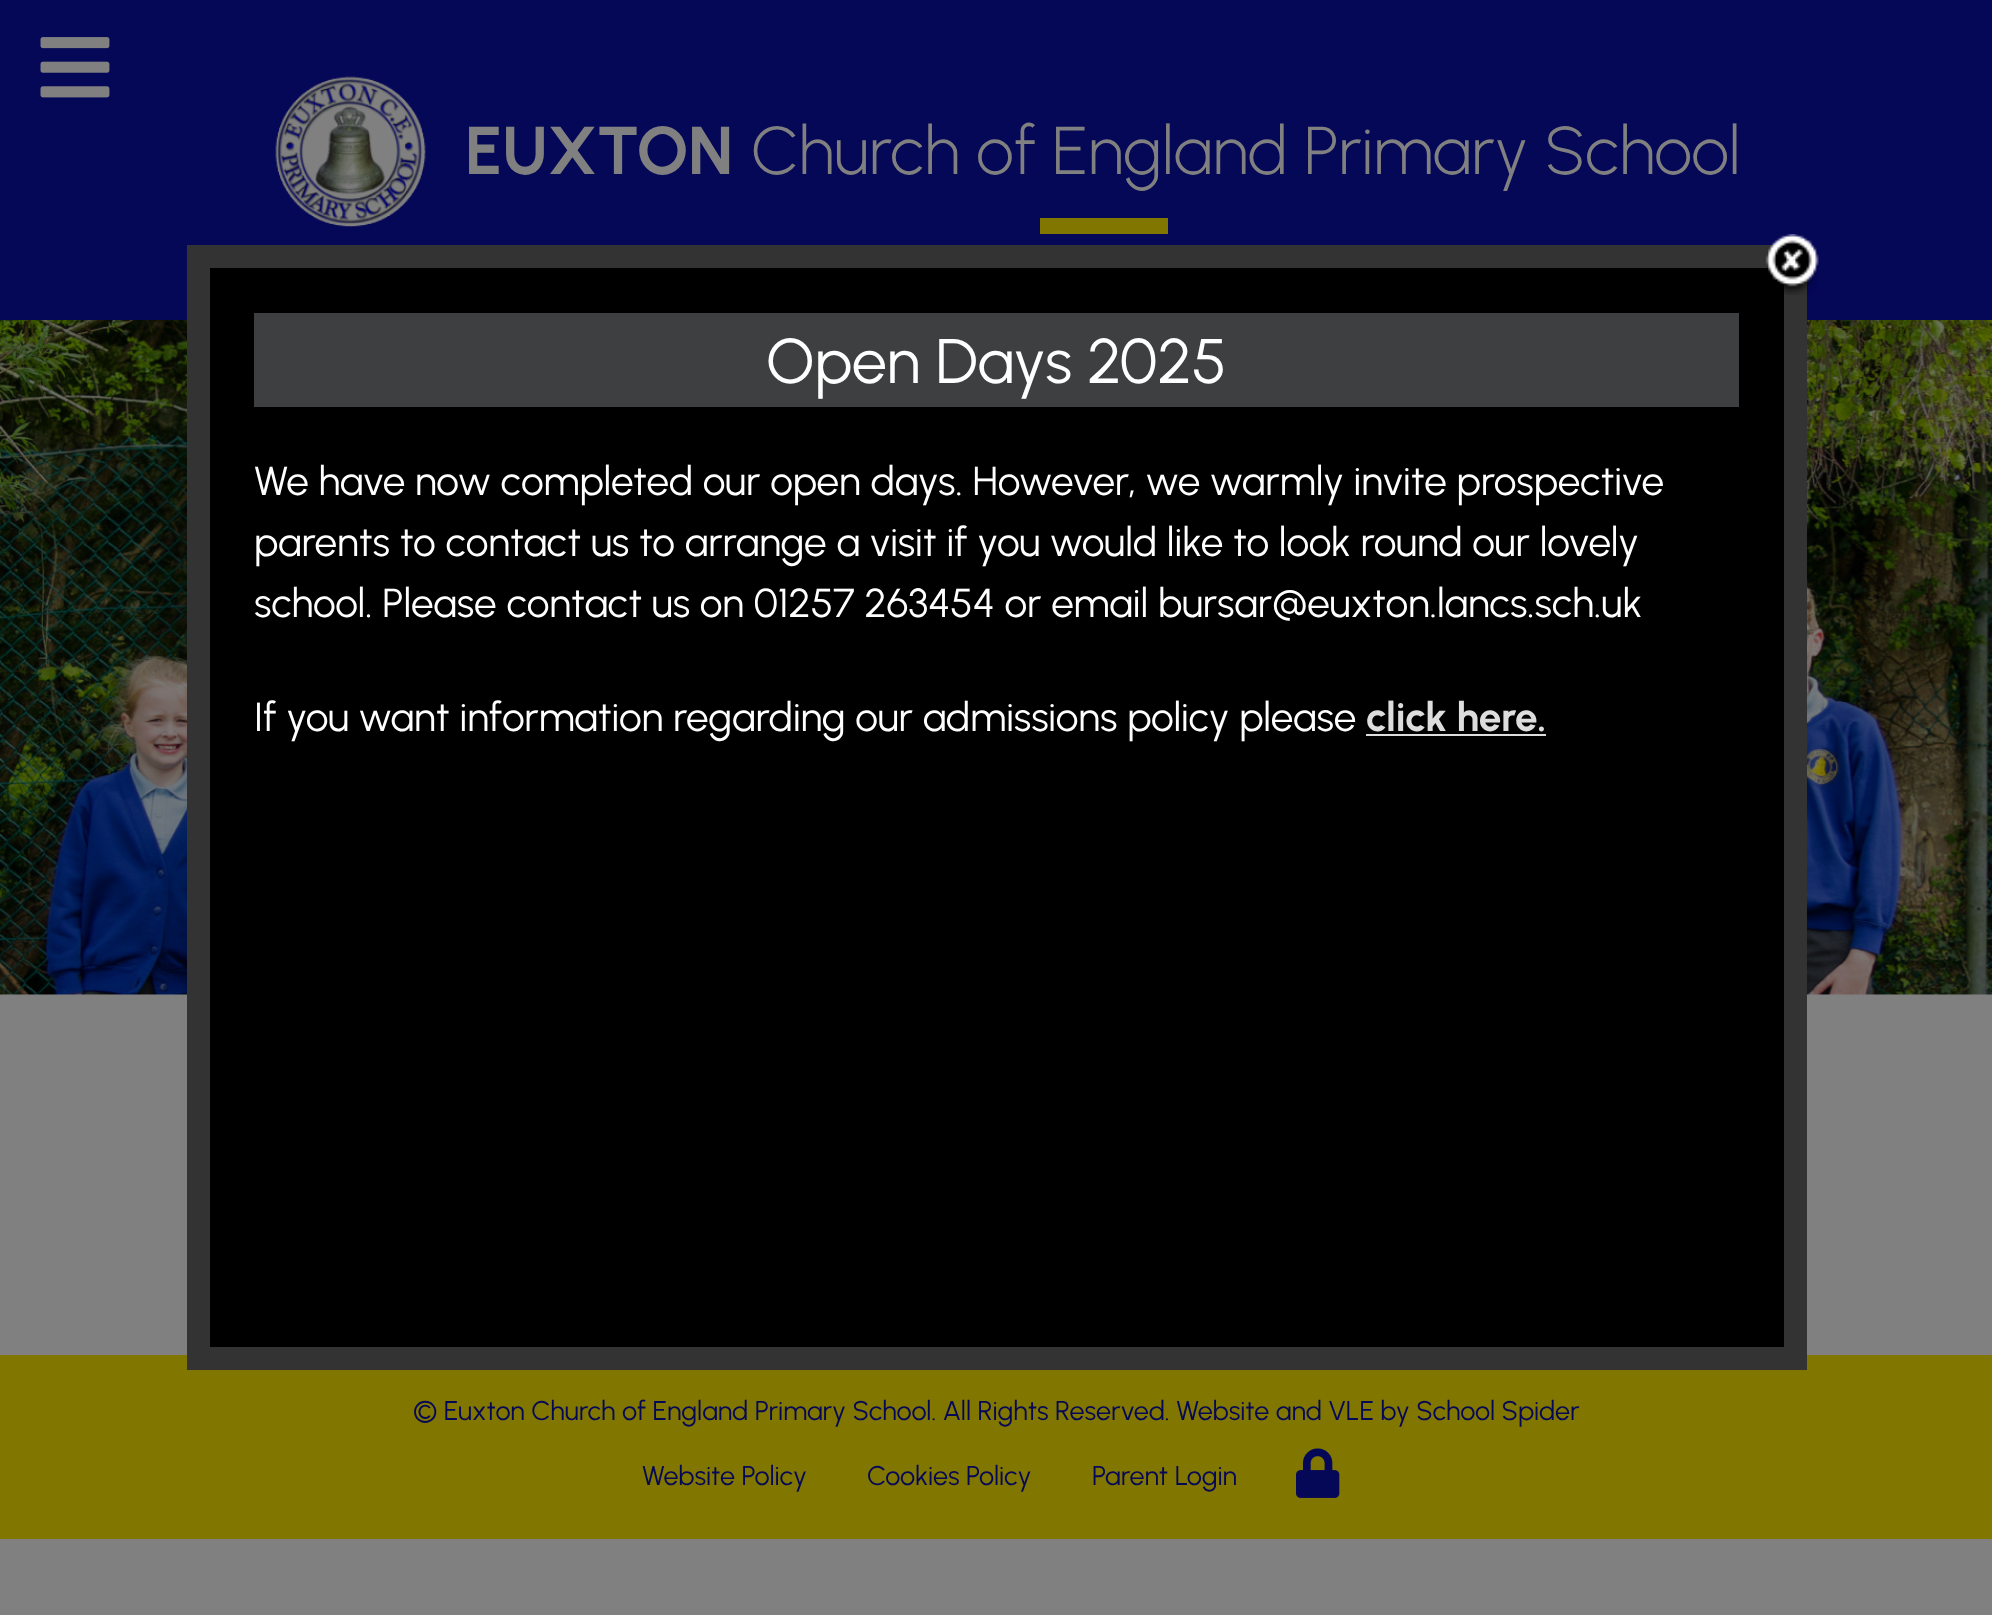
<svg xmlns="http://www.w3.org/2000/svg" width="1992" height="1615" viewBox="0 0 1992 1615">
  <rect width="100%" height="100%" fill="#808080"/>
  <rect x="0" y="0" width="1992" height="320" fill="#050757"/>
  <image x="40" y="37" width="70" height="61" href="img1.png"/>
  <image x="275" y="76" width="151" height="152" href="img2.png"/>
  <text x="465" y="174" font-family="Urbanist" font-size="67.5" font-weight="bold" fill="#808080">EUXTON</text>
  <text x="751" y="174" font-family="Urbanist" font-size="67.5" font-weight="300" fill="#808080">Church of England Primary School</text>
  <rect x="1040" y="218" width="128" height="16" fill="#807600"/>
  <image x="0" y="320" width="1992" height="675" href="img3.png"/>
  <rect x="0" y="1355" width="1992" height="184" fill="#807600"/>
  <rect x="198.5" y="256.5" width="1597" height="1102" fill="#000000" stroke="#333333" stroke-width="23"/>
  <image x="1765" y="234" width="54" height="61" href="img4.png"/>
  <rect x="254" y="313" width="1485" height="94" fill="#3d3f40"/>
  <text x="766" y="383" font-family="Urbanist" font-size="63" fill="#ffffff">Open Days 2025</text>
  <text x="254" y="495" font-family="Urbanist" font-size="40.5" fill="#ffffff">We have now completed our open days. However, we warmly invite prospective</text>
  <text x="254" y="556" font-family="Urbanist" font-size="40.5" fill="#ffffff">parents to contact us to arrange a visit if you would like to look round our lovely</text>
  <text x="254" y="617" font-family="Urbanist" font-size="40.5" fill="#ffffff">school. Please contact us on 01257 263454 or email bursar@euxton.lancs.sch.uk</text>
  <text x="254" y="731" font-family="Urbanist" font-size="40.5" fill="#ffffff">If you want information regarding our admissions policy please</text>
  <text x="1366" y="731" font-family="Urbanist" font-size="40.5" font-weight="bold" fill="#dddddd">click here.</text>
  <rect x="1366" y="734" width="180" height="2" fill="#dddddd"/>
  <text x="413" y="1420" font-family="Urbanist" font-size="27" fill="#050757">© Euxton Church of England Primary School. All Rights Reserved. Website and VLE by School Spider</text>
  <text x="642" y="1485" font-family="Urbanist" font-size="27" fill="#050757">Website Policy</text>
  <text x="867" y="1485" font-family="Urbanist" font-size="27" fill="#050757">Cookies Policy</text>
  <text x="1092" y="1485" font-family="Urbanist" font-size="27" fill="#050757">Parent Login</text>
  <image x="1296" y="1448" width="44" height="50" href="img5.png"/>
</svg>
